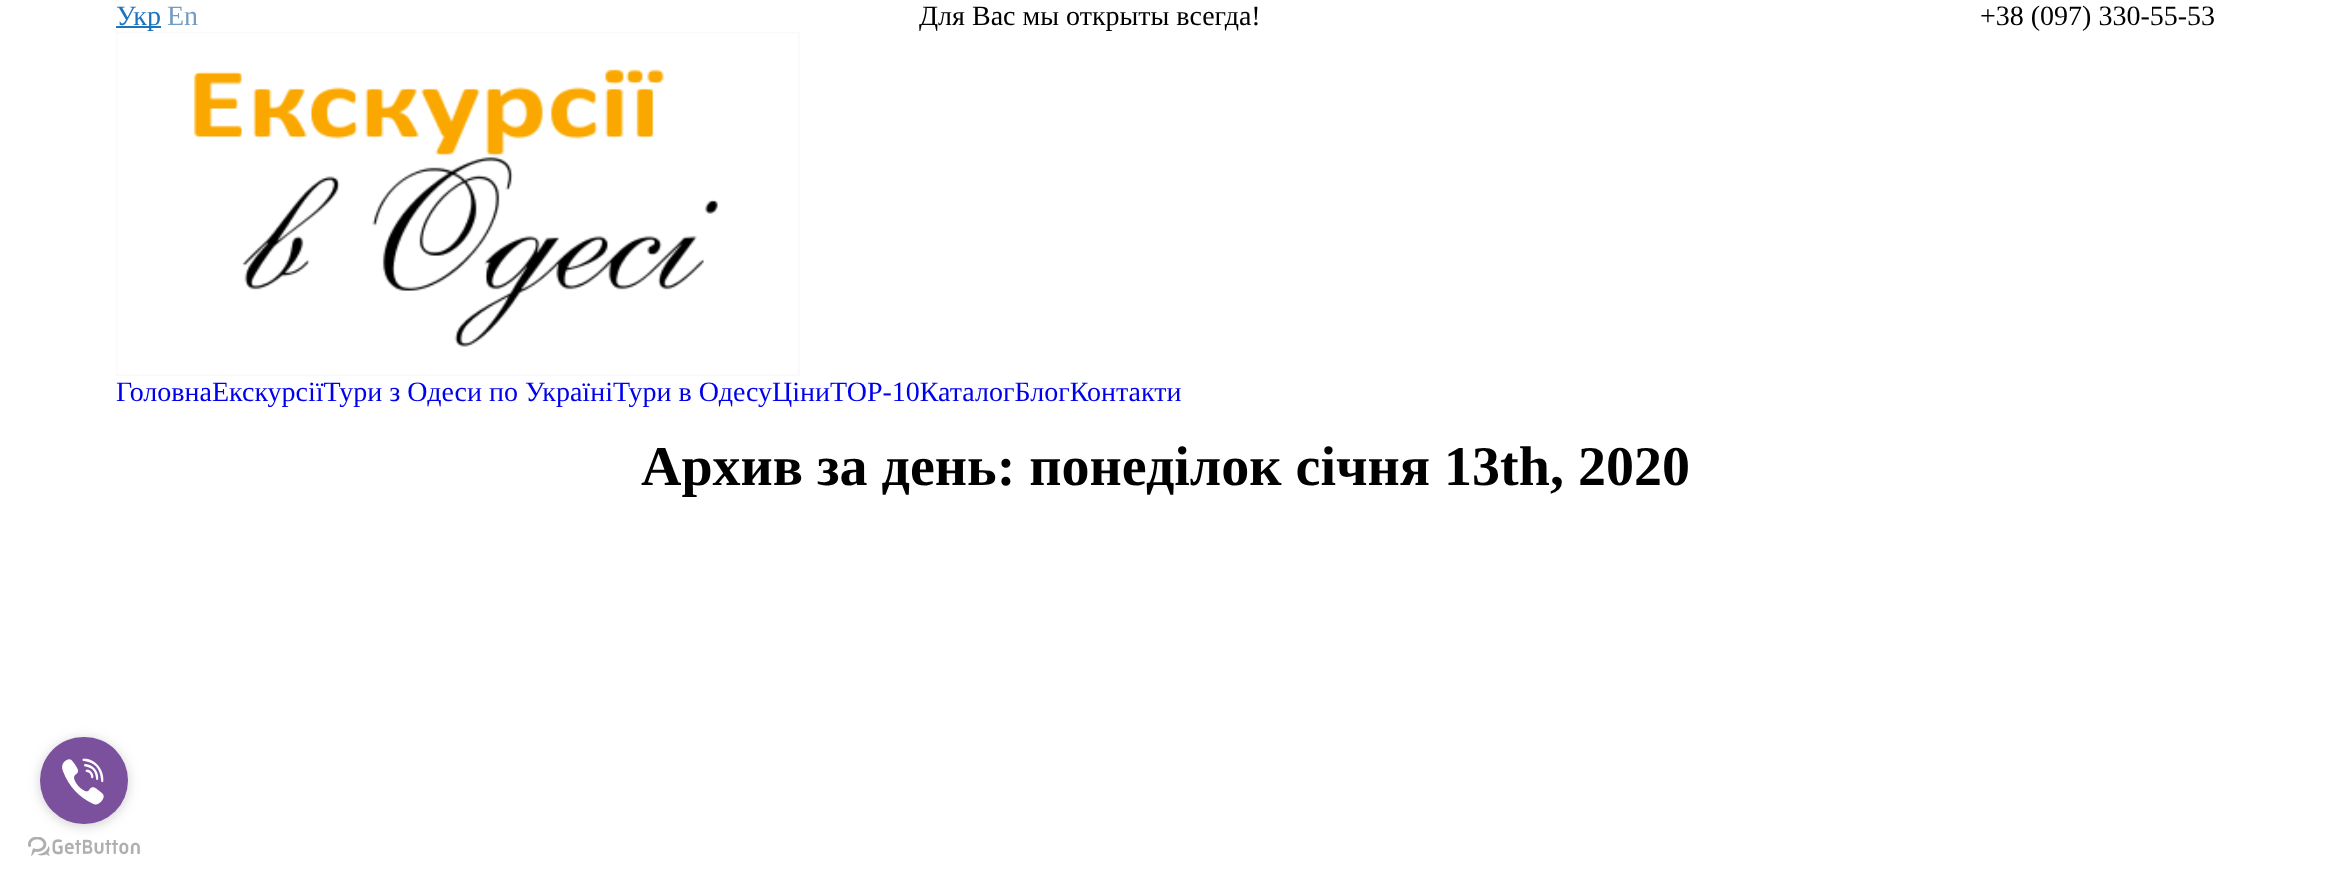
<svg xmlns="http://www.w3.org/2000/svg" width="2330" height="883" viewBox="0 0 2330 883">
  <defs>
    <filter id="blur1" x="-50%" y="-200%" width="200%" height="500%"><feGaussianBlur stdDeviation="6"/></filter>
  </defs>
  <rect width="100%" height="100%" fill="#ffffff"/>
  <rect x="116" y="26" width="45" height="2" fill="#1e73be"/>
  <text x="116" y="25" font-family="Liberation Serif" font-size="28" fill="#1e73be">Укр</text>
  <text x="167" y="25" font-family="Liberation Serif" font-size="28" fill="#729cc0">En</text>
  <text x="919" y="25" font-family="Liberation Serif" font-size="28" fill="#000000">Для Вас мы открыты всегда!</text>
  <text x="1980" y="25" font-family="Liberation Serif" font-size="28" fill="#000000">+38 (097) 330-55-53</text>
  <image x="116" y="32" width="684" height="344" href="img1.png"/>
  <text x="116" y="401" font-family="Liberation Serif" font-size="28" fill="#0000ee">ГоловнаЕкскурсіїТури з Одеси по УкраїніТури в ОдесуЦіниTOP-10КаталогБлогКонтакти</text>
  <text x="641" y="485" font-family="Liberation Serif" font-size="56" font-weight="bold" fill="#000000">Архив за день: понеділок січня 13th, 2020</text>
  <image x="28" y="837" width="112" height="19" href="img3.png"/>
  <rect x="40" y="739" width="88" height="87" rx="43.5" fill="#888888" fill-opacity="0.4" filter="url(#blur1)"/>
  <rect x="40" y="737" width="88" height="87" rx="43.5" fill="#7b519d"/>
  <image x="62" y="758" width="42" height="47" href="img2.png"/>
</svg>
